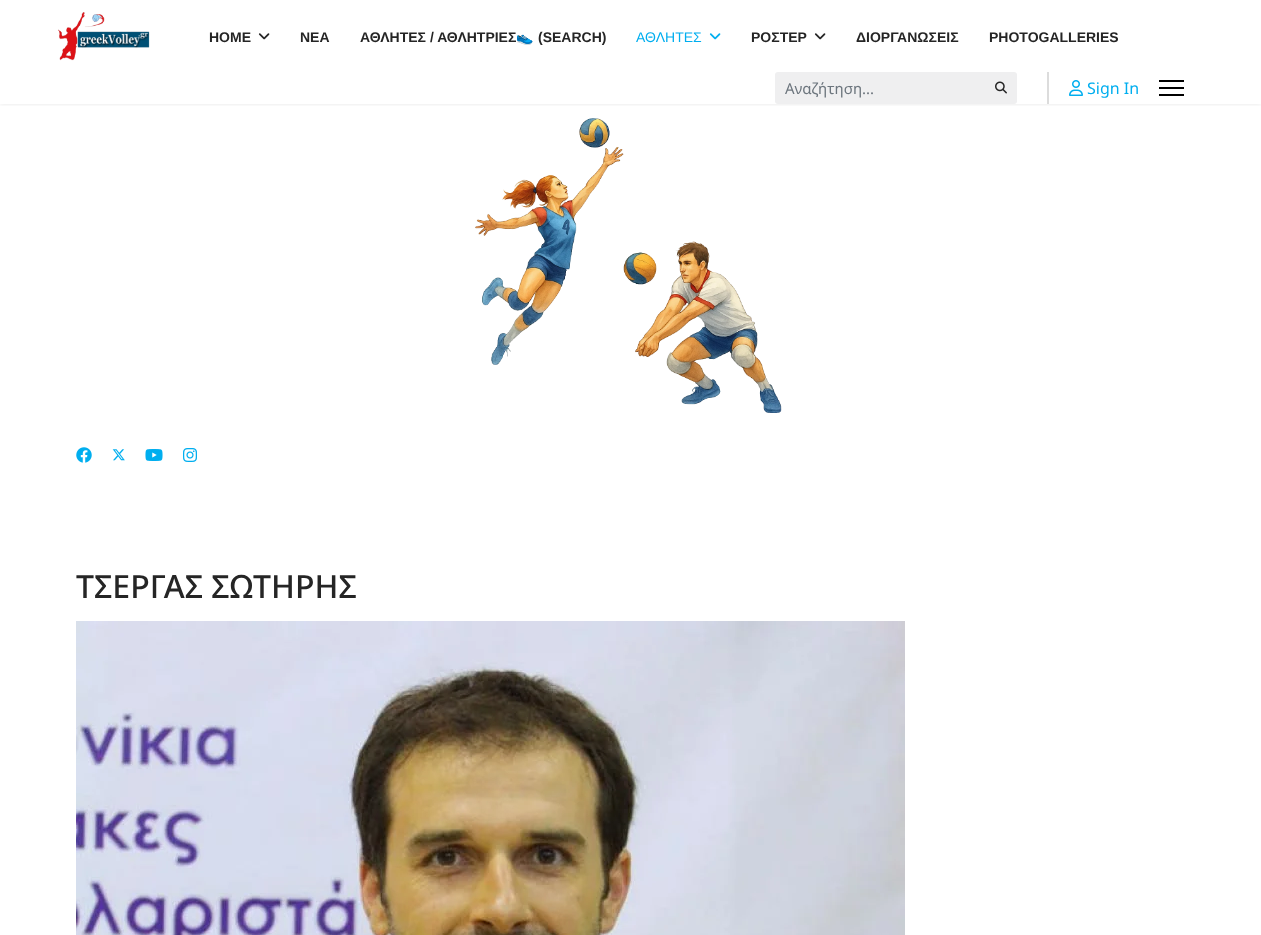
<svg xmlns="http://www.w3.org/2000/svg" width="1261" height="935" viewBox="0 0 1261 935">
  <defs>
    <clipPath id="clip1"><rect x="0" y="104" width="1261" height="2"/></clipPath>
    <filter id="blur1" x="-50%" y="-200%" width="200%" height="500%"><feGaussianBlur stdDeviation="2"/></filter>
  </defs>
  <rect width="100%" height="100%" fill="#ffffff"/>
  <g clip-path="url(#clip1)">
    <rect x="0" y="0" width="1261" height="104" fill="#000000" fill-opacity="0.1" filter="url(#blur1)"/>
  </g>
  <image x="58" y="12" width="92" height="49" href="img1.png"/>
  <text x="209" y="42" font-family="Liberation Sans" font-size="14" font-weight="bold" fill="#252525">HOME</text>
  <image x="258" y="33" width="12" height="7" href="img2.png"/>
  <text x="300" y="42" font-family="Liberation Sans" font-size="14" font-weight="bold" fill="#252525">ΝΕΑ</text>
  <text x="360" y="42" font-family="Liberation Sans" font-size="14" font-weight="bold" fill="#252525">ΑΘΛΗΤΕΣ / ΑΘΛΗΤΡΙΕΣ</text>
  <text x="516" y="42" font-family="Noto Color Emoji" font-size="14" font-weight="bold" fill="#252525">👟</text>
  <text x="538" y="42" font-family="Liberation Sans" font-size="14" font-weight="bold" fill="#252525">(SEARCH)</text>
  <text x="636" y="42" font-family="Liberation Sans" font-size="14" fill="#00aeef">ΑΘΛΗΤΕΣ</text>
  <image x="709" y="33" width="12" height="7" href="img3.png"/>
  <text x="751" y="42" font-family="Liberation Sans" font-size="14" font-weight="bold" fill="#252525">ΡΟΣΤΕΡ</text>
  <image x="814" y="33" width="12" height="7" href="img2.png"/>
  <text x="856" y="42" font-family="Liberation Sans" font-size="14" font-weight="bold" fill="#252525">ΔΙΟΡΓΑΝΩΣΕΙΣ</text>
  <text x="989" y="42" font-family="Liberation Sans" font-size="14" font-weight="bold" fill="#252525">PHOTOGALLERIES</text>
  <rect x="1047" y="72" width="2" height="32" fill="#dcdcdc"/>
  <rect x="775" y="72" width="242" height="32" rx="3" fill="#efeff0"/>
  <text x="785" y="94" font-family="Noto Sans" font-size="15" fill="#6c757d">Αναζήτηση...</text>
  <image x="995" y="81" width="12" height="13" href="img4.png"/>
  <image x="1069" y="80" width="14" height="16" href="img5.png"/>
  <text x="1087" y="94" font-family="Noto Sans" font-size="16" fill="#00aeef">Sign In</text>
  <rect x="1159" y="80" width="25" height="2" fill="#000000"/>
  <rect x="1159" y="87" width="25" height="2" fill="#000000"/>
  <rect x="1159" y="94" width="25" height="2" fill="#000000"/>
  <image x="475" y="118" width="307" height="295" href="img6.png"/>
  <image x="76" y="447" width="16" height="16" href="img7.png"/>
  <image x="112" y="449" width="13" height="12" href="img8.png"/>
  <image x="145" y="449" width="18" height="12" href="img9.png"/>
  <image x="183" y="448" width="14" height="14" href="img10.png"/>
  <text x="76" y="598" font-family="Noto Sans" font-size="32" font-weight="500" fill="#252525">ΤΣΕΡΓΑΣ ΣΩΤΗΡΗΣ</text>
  <image x="76" y="621" width="829" height="314" href="img11.png"/>
</svg>
